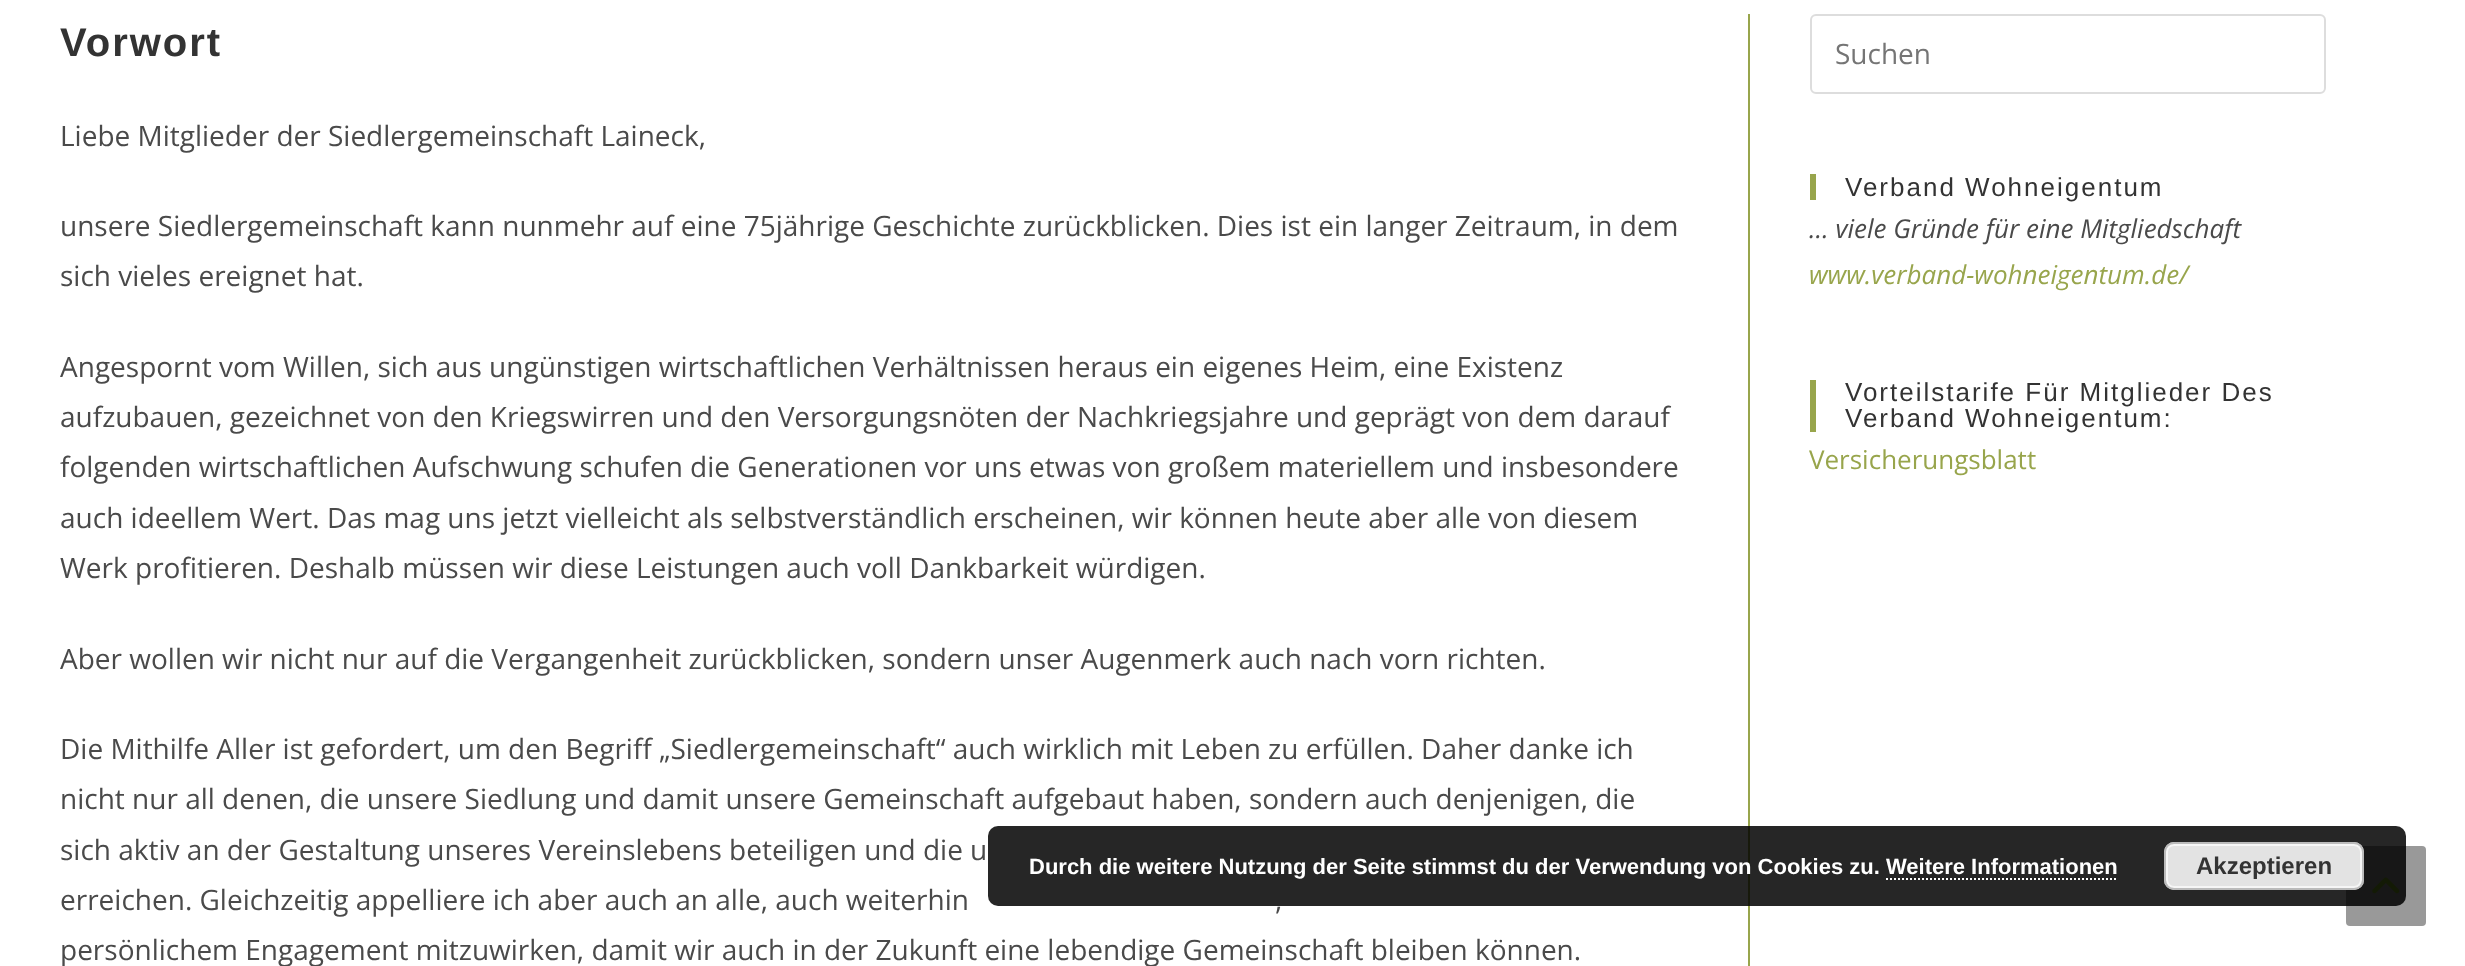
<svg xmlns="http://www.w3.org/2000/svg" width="2465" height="966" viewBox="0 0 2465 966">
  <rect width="100%" height="100%" fill="#ffffff"/>
  <rect x="1748" y="14" width="2" height="952" fill="#98a54c"/>
  <text x="60" y="56" font-family="Liberation Sans" font-size="40" font-weight="bold" letter-spacing="2" fill="#333333">Vorwort</text>
  <text x="60" y="146" font-family="Open Sans" font-size="28" fill="#4a4a4a">Liebe Mitglieder der Siedlergemeinschaft Laineck,</text>
  <text x="60" y="236" font-family="Open Sans" font-size="28" fill="#4a4a4a">unsere Siedlergemeinschaft kann nunmehr auf eine 75jährige Geschichte zurückblicken. Dies ist ein langer Zeitraum, in dem</text>
  <text x="60" y="286" font-family="Open Sans" font-size="28" fill="#4a4a4a">sich vieles ereignet hat.</text>
  <text x="60" y="377" font-family="Open Sans" font-size="28" fill="#4a4a4a">Angespornt vom Willen, sich aus ungünstigen wirtschaftlichen Verhältnissen heraus ein eigenes Heim, eine Existenz</text>
  <text x="60" y="427" font-family="Open Sans" font-size="28" fill="#4a4a4a">aufzubauen, gezeichnet von den Kriegswirren und den Versorgungsnöten der Nachkriegsjahre und geprägt von dem darauf</text>
  <text x="60" y="477" font-family="Open Sans" font-size="28" fill="#4a4a4a">folgenden wirtschaftlichen Aufschwung schufen die Generationen vor uns etwas von großem materiellem und insbesondere</text>
  <text x="60" y="528" font-family="Open Sans" font-size="28" fill="#4a4a4a">auch ideellem Wert. Das mag uns jetzt vielleicht als selbstverständlich erscheinen, wir können heute aber alle von diesem</text>
  <text x="60" y="578" font-family="Open Sans" font-size="28" fill="#4a4a4a">Werk profitieren. Deshalb müssen wir diese Leistungen auch voll Dankbarkeit würdigen.</text>
  <text x="60" y="669" font-family="Open Sans" font-size="28" fill="#4a4a4a">Aber wollen wir nicht nur auf die Vergangenheit zurückblicken, sondern unser Augenmerk auch nach vorn richten.</text>
  <text x="60" y="759" font-family="Open Sans" font-size="28" fill="#4a4a4a">Die Mithilfe Aller ist gefordert, um den Begriff „Siedlergemeinschaft“ auch wirklich mit Leben zu erfüllen. Daher danke ich</text>
  <text x="60" y="809" font-family="Open Sans" font-size="28" fill="#4a4a4a">nicht nur all denen, die unsere Siedlung und damit unsere Gemeinschaft aufgebaut haben, sondern auch denjenigen, die</text>
  <text x="60" y="860" font-family="Open Sans" font-size="28" fill="#4a4a4a">sich aktiv an der Gestaltung unseres Vereinslebens beteiligen und die u</text>
  <text x="60" y="910" font-family="Open Sans" font-size="28" fill="#4a4a4a">erreichen. Gleichzeitig appelliere ich aber auch an alle, auch weiterhin</text>
  <text x="1275" y="910" font-family="Open Sans" font-size="28" fill="#4a4a4a">,</text>
  <text x="60" y="960" font-family="Open Sans" font-size="28" fill="#4a4a4a">persönlichem Engagement mitzuwirken, damit wir auch in der Zukunft eine lebendige Gemeinschaft bleiben können.</text>
  <rect x="1811" y="15" width="514" height="78" rx="5" fill="none" stroke="#dddddd" stroke-width="2"/>
  <text x="1835" y="64" font-family="Open Sans" font-size="28" fill="#757575">Suchen</text>
  <rect x="1810" y="174" width="6" height="26" fill="#98a54c"/>
  <text x="1845" y="196" font-family="Liberation Sans" font-size="26" letter-spacing="2" fill="#333333">Verband Wohneigentum</text>
  <text x="1809" y="238" font-family="Open Sans" font-size="26" font-style="italic" fill="#4a4a4a">… viele Gründe für eine Mitgliedschaft</text>
  <text x="1809" y="284" font-family="Open Sans" font-size="26" font-style="italic" fill="#98a54c">www.verband-wohneigentum.de/</text>
  <rect x="1810" y="380" width="6" height="52" fill="#98a54c"/>
  <text x="1845" y="401" font-family="Liberation Sans" font-size="26" letter-spacing="2" fill="#333333">Vorteilstarife Für Mitglieder Des</text>
  <text x="1845" y="427" font-family="Liberation Sans" font-size="26" letter-spacing="2" fill="#333333">Verband Wohneigentum:</text>
  <text x="1809" y="469" font-family="Open Sans" font-size="26" fill="#98a54c">Versicherungsblatt</text>
  <rect x="2346" y="846" width="80" height="80" rx="4" fill="#999999"/>
  <image x="2372" y="877" width="28" height="17" href="img1.png"/>
  <rect x="988" y="826" width="1418" height="80" rx="10" fill="#000000" fill-opacity="0.85"/>
  <text x="1029" y="874" font-family="Liberation Sans" font-size="22" font-weight="bold" fill="#ffffff">Durch die weitere Nutzung der Seite stimmst du der Verwendung von Cookies zu. Weitere Informationen</text>
  <rect x="2164" y="842" width="200" height="48" rx="10" fill="#e3e3e3"/>
  <rect x="2167" y="845" width="194" height="42" rx="7" fill="none" stroke="#f6f6f6" stroke-width="2"/>
  <rect x="2165" y="843" width="198" height="46" rx="9" fill="none" stroke="#bbbbbb" stroke-width="2"/>
  <text x="2196" y="874" font-family="Liberation Sans" font-size="24" font-weight="bold" fill="#333333">Akzeptieren</text>
  <path d="M1886 879H2118" fill="none" stroke="#ffffff" stroke-width="2" stroke-dasharray="2 2"/>
</svg>
